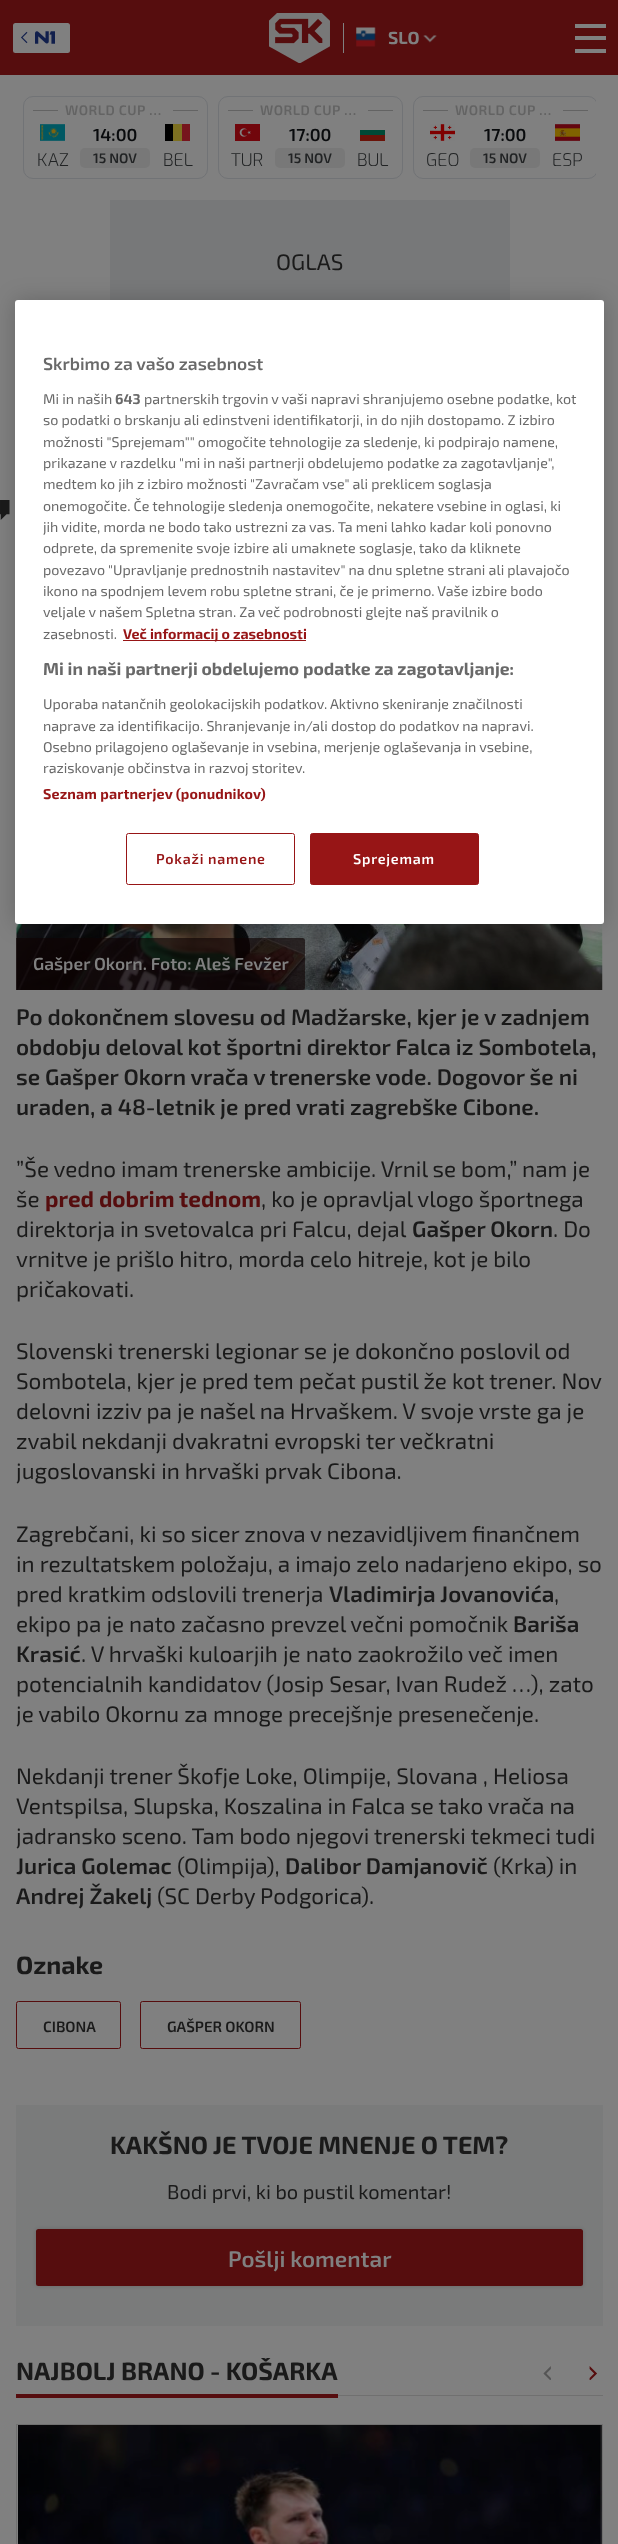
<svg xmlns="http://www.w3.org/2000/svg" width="618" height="2544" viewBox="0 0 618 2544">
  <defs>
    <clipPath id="clip1"><rect x="23" y="96" width="573" height="83"/></clipPath>
    <filter id="blur1" x="-50%" y="-200%" width="200%" height="500%"><feGaussianBlur stdDeviation="2.5"/></filter>
    <clipPath id="clip2"><rect x="16" y="2358" width="587" height="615"/></clipPath>
    <filter id="blur2" x="-50%" y="-200%" width="200%" height="500%"><feGaussianBlur stdDeviation="11"/></filter>
  </defs>
  <rect width="100%" height="100%" fill="#808080"/>
  <rect x="0" y="0" width="618" height="75" fill="#560d0e"/>
  <rect x="13" y="23" width="57" height="30" rx="2.5" fill="#808080"/>
  <image x="21" y="31" width="7" height="13" href="img1.png"/>
  <image x="35" y="31" width="20" height="13" href="img2.png"/>
  <image x="269" y="13" width="61" height="50" href="img3.png"/>
  <rect x="343" y="23" width="1" height="30" fill="#808080"/>
  <image x="356" y="27" width="20" height="20" href="img4.png"/>
  <text x="388" y="44" font-family="'Exo 2'" font-size="17.5" font-weight="bold" fill="#808080">SLO</text>
  <image x="423" y="35" width="14" height="8" href="img5.png"/>
  <rect x="575" y="24" width="31" height="4" fill="#808080"/>
  <rect x="575" y="36" width="31" height="4" fill="#808080"/>
  <rect x="575" y="49" width="31" height="4" fill="#808080"/>
  <rect x="23.5" y="96.5" width="184" height="82" rx="9.5" fill="none" stroke="#717376"/>
  <rect x="33" y="110" width="25" height="1" fill="#636363"/>
  <text x="65" y="115" font-family="'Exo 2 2'" font-size="13.75" font-weight="600" letter-spacing="0.5" fill="#636363">WORLD CUP …</text>
  <rect x="173" y="110" width="25" height="1" fill="#636363"/>
  <image x="40" y="124" width="25" height="17" href="img6.png"/>
  <text x="37" y="166" font-family="Exo" font-size="17.5" font-weight="300" fill="#212324">KAZ</text>
  <text x="93" y="141" font-family="'Exo 2 2'" font-size="17.5" font-weight="600" fill="#090b0d">14:00</text>
  <rect x="80" y="148" width="70" height="20" rx="5" fill="#787878"/>
  <text x="93" y="163" font-family="'Exo 2 2'" font-size="13.75" font-weight="600" fill="#212324">15 NOV</text>
  <rect x="182" y="124" width="8" height="17" fill="#76151d"/>
  <rect x="173" y="124" width="9" height="17" fill="#7d7021"/>
  <rect x="165" y="124" width="8" height="17" fill="#000000"/>
  <text x="163" y="166" font-family="Exo" font-size="17.5" font-weight="300" fill="#212324">BEL</text>
  <rect x="218.5" y="96.5" width="184" height="82" rx="9.5" fill="none" stroke="#717376"/>
  <rect x="228" y="110" width="25" height="1" fill="#636363"/>
  <text x="260" y="115" font-family="'Exo 2 2'" font-size="13.75" font-weight="600" letter-spacing="0.5" fill="#636363">WORLD CUP …</text>
  <rect x="368" y="110" width="25" height="1" fill="#636363"/>
  <image x="235" y="124" width="25" height="17" href="img7.png"/>
  <text x="231" y="166" font-family="Exo" font-size="17.5" font-weight="300" fill="#212324">TUR</text>
  <text x="289" y="141" font-family="'Exo 2 2'" font-size="17.5" font-weight="600" fill="#090b0d">17:00</text>
  <rect x="275" y="148" width="70" height="20" rx="5" fill="#787878"/>
  <text x="288" y="163" font-family="'Exo 2 2'" font-size="13.75" font-weight="600" fill="#212324">15 NOV</text>
  <image x="360" y="130" width="25" height="11" href="img8.png"/>
  <text x="357" y="166" font-family="Exo" font-size="17.5" font-weight="300" fill="#212324">BUL</text>
  <g clip-path="url(#clip1)">
    <rect x="413.5" y="96.5" width="184" height="82" rx="9.5" fill="none" stroke="#717376"/>
  </g>
  <rect x="423" y="110" width="25" height="1" fill="#636363"/>
  <text x="455" y="115" font-family="'Exo 2 2'" font-size="13.75" font-weight="600" letter-spacing="0.5" fill="#636363">WORLD CUP …</text>
  <rect x="563" y="110" width="25" height="1" fill="#636363"/>
  <image x="430" y="124" width="25" height="17" href="img9.png"/>
  <text x="426" y="166" font-family="Exo" font-size="17.5" font-weight="300" fill="#212324">GEO</text>
  <text x="484" y="141" font-family="'Exo 2 2'" font-size="17.5" font-weight="600" fill="#090b0d">17:00</text>
  <rect x="470" y="148" width="70" height="20" rx="5" fill="#787878"/>
  <text x="483" y="163" font-family="'Exo 2 2'" font-size="13.75" font-weight="600" fill="#212324">15 NOV</text>
  <image x="555" y="124" width="25" height="17" href="img10.png"/>
  <text x="552" y="166" font-family="Exo" font-size="17.5" font-weight="300" fill="#212324">ESP</text>
  <rect x="110" y="200" width="400" height="100" fill="#777879"/>
  <text x="276" y="270" font-family="'Exo 2'" font-size="22.5" fill="#1a1a1a">OGLAS</text>
  <image x="0" y="500" width="10" height="20" href="img11.png"/>
  <image x="16" y="923" width="587" height="67" href="img12.png"/>
  <path d="M16 938H302.5C304 938 305 939 305 940.5V987.5C305 989 304 990 302.5 990H16Z" fill="#0f0303" fill-opacity="0.65"/>
  <text x="33" y="970" font-family="'Exo 2'" font-size="17.5" font-weight="600" fill="#808080">Gašper Okorn. Foto: Aleš Fevžer</text>
  <text x="16" y="1025" font-family="'Exo 2'" font-size="22.5" font-weight="600" fill="#1a1a1a">Po dokončnem slovesu od Madžarske, kjer je v zadnjem</text>
  <text x="16" y="1055" font-family="'Exo 2'" font-size="22.5" font-weight="600" fill="#1a1a1a">obdobju deloval kot športni direktor Falca iz Sombotela,</text>
  <text x="16" y="1085" font-family="'Exo 2'" font-size="22.5" font-weight="600" fill="#1a1a1a">se Gašper Okorn vrača v trenerske vode. Dogovor še ni</text>
  <text x="16" y="1115" font-family="'Exo 2'" font-size="22.5" font-weight="600" fill="#1a1a1a">uraden, a 48-letnik je pred vrati zagrebške Cibone.</text>
  <text x="16" y="1177" font-family="'Exo 2'" font-size="22.5" fill="#1a1a1a">”Še vedno imam trenerske ambicije. Vrnil se bom,” nam je</text>
  <text x="16" y="1207" font-family="'Exo 2'" font-size="22.5" fill="#1a1a1a">še</text>
  <text x="45" y="1207" font-family="'Exo 2'" font-size="22.5" font-weight="bold" fill="#560d0e">pred dobrim tednom</text>
  <text x="261" y="1207" font-family="'Exo 2'" font-size="22.5" fill="#1a1a1a">, ko je opravljal vlogo športnega</text>
  <text x="16" y="1237" font-family="'Exo 2'" font-size="22.5" fill="#1a1a1a">direktorja in svetovalca pri Falcu, dejal</text>
  <text x="412" y="1237" font-family="'Exo 2'" font-size="22.5" font-weight="600" fill="#1a1a1a">Gašper Okorn</text>
  <text x="553" y="1237" font-family="'Exo 2'" font-size="22.5" fill="#1a1a1a">. Do</text>
  <text x="16" y="1267" font-family="'Exo 2'" font-size="22.5" fill="#1a1a1a">vrnitve je prišlo hitro, morda celo hitreje, kot je bilo</text>
  <text x="16" y="1297" font-family="'Exo 2'" font-size="22.5" fill="#1a1a1a">pričakovati.</text>
  <text x="16" y="1359" font-family="'Exo 2'" font-size="22.5" fill="#1a1a1a">Slovenski trenerski legionar se je dokončno poslovil od</text>
  <text x="16" y="1389" font-family="'Exo 2'" font-size="22.5" fill="#1a1a1a">Sombotela, kjer je pred tem pečat pustil že kot trener. Nov</text>
  <text x="16" y="1419" font-family="'Exo 2'" font-size="22.5" fill="#1a1a1a">delovni izziv pa je našel na Hrvaškem. V svoje vrste ga je</text>
  <text x="16" y="1449" font-family="'Exo 2'" font-size="22.5" fill="#1a1a1a">zvabil nekdanji dvakratni evropski ter večkratni</text>
  <text x="16" y="1479" font-family="'Exo 2'" font-size="22.5" fill="#1a1a1a">jugoslovanski in hrvaški prvak Cibona.</text>
  <text x="16" y="1542" font-family="'Exo 2'" font-size="22.5" fill="#1a1a1a">Zagrebčani, ki so sicer znova v nezavidljivem finančnem</text>
  <text x="16" y="1572" font-family="'Exo 2'" font-size="22.5" fill="#1a1a1a">in rezultatskem položaju, a imajo zelo nadarjeno ekipo, so</text>
  <text x="16" y="1602" font-family="'Exo 2'" font-size="22.5" fill="#1a1a1a">pred kratkim odslovili trenerja</text>
  <text x="329" y="1602" font-family="'Exo 2'" font-size="22.5" font-weight="600" fill="#1a1a1a">Vladimirja Jovanovića</text>
  <text x="554" y="1602" font-family="'Exo 2'" font-size="22.5" fill="#1a1a1a">,</text>
  <text x="16" y="1632" font-family="'Exo 2'" font-size="22.5" fill="#1a1a1a">ekipo pa je nato začasno prevzel večni pomočnik</text>
  <text x="513" y="1632" font-family="'Exo 2'" font-size="22.5" font-weight="600" fill="#1a1a1a">Bariša</text>
  <text x="16" y="1662" font-family="'Exo 2'" font-size="22.5" font-weight="600" fill="#1a1a1a">Krasić</text>
  <text x="81" y="1662" font-family="'Exo 2'" font-size="22.5" fill="#1a1a1a">. V hrvaški kuloarjih je nato zaokrožilo več imen</text>
  <text x="16" y="1692" font-family="'Exo 2'" font-size="22.5" fill="#1a1a1a">potencialnih kandidatov (Josip Sesar, Ivan Rudež …), zato</text>
  <text x="16" y="1722" font-family="'Exo 2'" font-size="22.5" fill="#1a1a1a">je vabilo Okornu za mnoge precejšnje presenečenje.</text>
  <text x="16" y="1784" font-family="'Exo 2'" font-size="22.5" fill="#1a1a1a">Nekdanji trener Škofje Loke, Olimpije, Slovana , Heliosa</text>
  <text x="16" y="1814" font-family="'Exo 2'" font-size="22.5" fill="#1a1a1a">Ventspilsa, Slupska, Koszalina in Falca se tako vrača na</text>
  <text x="16" y="1844" font-family="'Exo 2'" font-size="22.5" fill="#1a1a1a">jadransko sceno. Tam bodo njegovi trenerski tekmeci tudi</text>
  <text x="16" y="1874" font-family="'Exo 2'" font-size="22.5" font-weight="600" fill="#1a1a1a">Jurica Golemac</text>
  <text x="177" y="1874" font-family="'Exo 2'" font-size="22.5" fill="#1a1a1a">(Olimpija),</text>
  <text x="285" y="1874" font-family="'Exo 2'" font-size="22.5" font-weight="600" fill="#1a1a1a">Dalibor Damjanovič</text>
  <text x="493" y="1874" font-family="'Exo 2'" font-size="22.5" fill="#1a1a1a">(Krka) in</text>
  <text x="16" y="1904" font-family="'Exo 2'" font-size="22.5" font-weight="600" fill="#1a1a1a">Andrej Žakelj</text>
  <text x="157" y="1904" font-family="'Exo 2'" font-size="22.5" fill="#1a1a1a">(SC Derby Podgorica).</text>
  <text x="16" y="1974" font-family="'Exo 2'" font-size="25" font-weight="bold" fill="#1a1a1a">Oznake</text>
  <rect x="16.5" y="2001.5" width="104" height="47" rx="2" fill="none" stroke="#560d0e"/>
  <text x="43" y="2032" font-family="'Exo 2'" font-size="15" font-weight="600" fill="#1a1a1a">CIBONA</text>
  <rect x="140.5" y="2001.5" width="160" height="47" rx="2" fill="none" stroke="#560d0e"/>
  <text x="167" y="2032" font-family="'Exo 2'" font-size="15" font-weight="600" fill="#1a1a1a">GAŠPER OKORN</text>
  <rect x="16" y="2105" width="587" height="221" fill="#7a7b7b"/>
  <text x="110" y="2154" font-family="'Exo 2'" font-size="25" font-weight="bold" fill="#1a1a1a">KAKŠNO JE TVOJE MNENJE O TEM?</text>
  <text x="167" y="2199" font-family="'Exo 2'" font-size="20" fill="#1a1a1a">Bodi prvi, ki bo pustil komentar!</text>
  <rect x="36" y="2229" width="547" height="57" rx="2.5" fill="#0f0303" fill-opacity="0.16" filter="url(#blur1)"/>
  <rect x="36" y="2229" width="547" height="57" rx="2.5" fill="#560d0e"/>
  <text x="228" y="2267" font-family="'Exo 2'" font-size="22.5" font-weight="600" fill="#808080">Pošlji komentar</text>
  <rect x="338" y="2395" width="265" height="1" fill="#707070"/>
  <g clip-path="url(#clip2)">
    <text x="16" y="2380" font-family="'Exo 2'" font-size="25" font-weight="bold" fill="#1a1a1a">NAJBOLJ BRANO - KOŠARKA</text>
  </g>
  <rect x="16" y="2394" width="322" height="4" fill="#560d0e"/>
  <image x="543" y="2366" width="8" height="14" href="img13.png"/>
  <image x="589" y="2366" width="8" height="14" href="img14.png"/>
  <rect x="16.5" y="2424.5" width="586" height="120" fill="none" stroke="#707070"/>
  <image x="18" y="2425" width="584" height="119" href="img15.png"/>
  <rect x="15" y="300" width="589" height="624" rx="3" fill="#000000" fill-opacity="0.2" filter="url(#blur2)"/>
  <rect x="15" y="300" width="589" height="624" rx="3" fill="#ffffff"/>
  <text x="43" y="370" font-family="'Exo 2'" font-size="17.5" font-weight="600" fill="#696969">Skrbimo za vašo zasebnost</text>
  <text x="43" y="404" font-family="'Exo 2'" font-size="14.25" fill="#696969">Mi in naših</text>
  <text x="115" y="404" font-family="'Exo 2'" font-size="14.25" font-weight="bold" fill="#696969">643</text>
  <text x="144" y="404" font-family="'Exo 2'" font-size="14.25" fill="#696969">partnerskih trgovin v vaši napravi shranjujemo osebne podatke, kot</text>
  <text x="43" y="425" font-family="'Exo 2'" font-size="14.25" fill="#696969">so podatki o brskanju ali edinstveni identifikatorji, in do njih dostopamo. Z izbiro</text>
  <text x="43" y="447" font-family="'Exo 2'" font-size="14.25" fill="#696969">možnosti "Sprejemam"" omogočite tehnologije za sledenje, ki podpirajo namene,</text>
  <text x="43" y="468" font-family="'Exo 2'" font-size="14.25" fill="#696969">prikazane v razdelku "mi in naši partnerji obdelujemo podatke za zagotavljanje",</text>
  <text x="43" y="489" font-family="'Exo 2'" font-size="14.25" fill="#696969">medtem ko jih z izbiro možnosti "Zavračam vse" ali preklicem soglasja</text>
  <text x="43" y="511" font-family="'Exo 2'" font-size="14.25" fill="#696969">onemogočite. Če tehnologije sledenja onemogočite, nekatere vsebine in oglasi, ki</text>
  <text x="43" y="532" font-family="'Exo 2'" font-size="14.25" fill="#696969">jih vidite, morda ne bodo tako ustrezni za vas. Ta meni lahko kadar koli ponovno</text>
  <text x="43" y="553" font-family="'Exo 2'" font-size="14.25" fill="#696969">odprete, da spremenite svoje izbire ali umaknete soglasje, tako da kliknete</text>
  <text x="43" y="575" font-family="'Exo 2'" font-size="14.25" fill="#696969">povezavo "Upravljanje prednostnih nastavitev" na dnu spletne strani ali plavajočo</text>
  <text x="43" y="596" font-family="'Exo 2'" font-size="14.25" fill="#696969">ikono na spodnjem levem robu spletne strani, če je primerno. Vaše izbire bodo</text>
  <text x="43" y="617" font-family="'Exo 2'" font-size="14.25" fill="#696969">veljale v našem Spletna stran. Za več podrobnosti glejte naš pravilnik o</text>
  <text x="43" y="639" font-family="'Exo 2'" font-size="14.25" fill="#696969">zasebnosti.</text>
  <rect x="123" y="640" width="183" height="1" fill="#971516"/>
  <text x="123" y="639" font-family="'Exo 2'" font-size="14.25" font-weight="bold" fill="#971516">Več informacij o zasebnosti</text>
  <text x="43" y="675" font-family="'Exo 2'" font-size="17.5" font-weight="bold" fill="#696969">Mi in naši partnerji obdelujemo podatke za zagotavljanje:</text>
  <text x="43" y="709" font-family="'Exo 2'" font-size="14.25" fill="#696969">Uporaba natančnih geolokacijskih podatkov. Aktivno skeniranje značilnosti</text>
  <text x="43" y="731" font-family="'Exo 2'" font-size="14.25" fill="#696969">naprave za identifikacijo. Shranjevanje in/ali dostop do podatkov na napravi.</text>
  <text x="43" y="752" font-family="'Exo 2'" font-size="14.25" fill="#696969">Osebno prilagojeno oglaševanje in vsebina, merjenje oglaševanja in vsebine,</text>
  <text x="43" y="773" font-family="'Exo 2'" font-size="14.25" fill="#696969">raziskovanje občinstva in razvoj storitev.</text>
  <text x="43" y="799" font-family="'Exo 2'" font-size="14.25" font-weight="bold" letter-spacing="0.15" fill="#971516">Seznam partnerjev (ponudnikov)</text>
  <rect x="126.5" y="833.5" width="168" height="51" rx="2" fill="none" stroke="#971516"/>
  <text x="156" y="864" font-family="'Exo 2'" font-size="14.25" font-weight="600" letter-spacing="0.75" fill="#971516">Pokaži namene</text>
  <rect x="310.5" y="833.5" width="168" height="51" rx="2" fill="#971516" stroke="#971516"/>
  <text x="353" y="864" font-family="'Exo 2'" font-size="14.25" font-weight="600" letter-spacing="0.75" fill="#ffffff">Sprejemam</text>
</svg>
